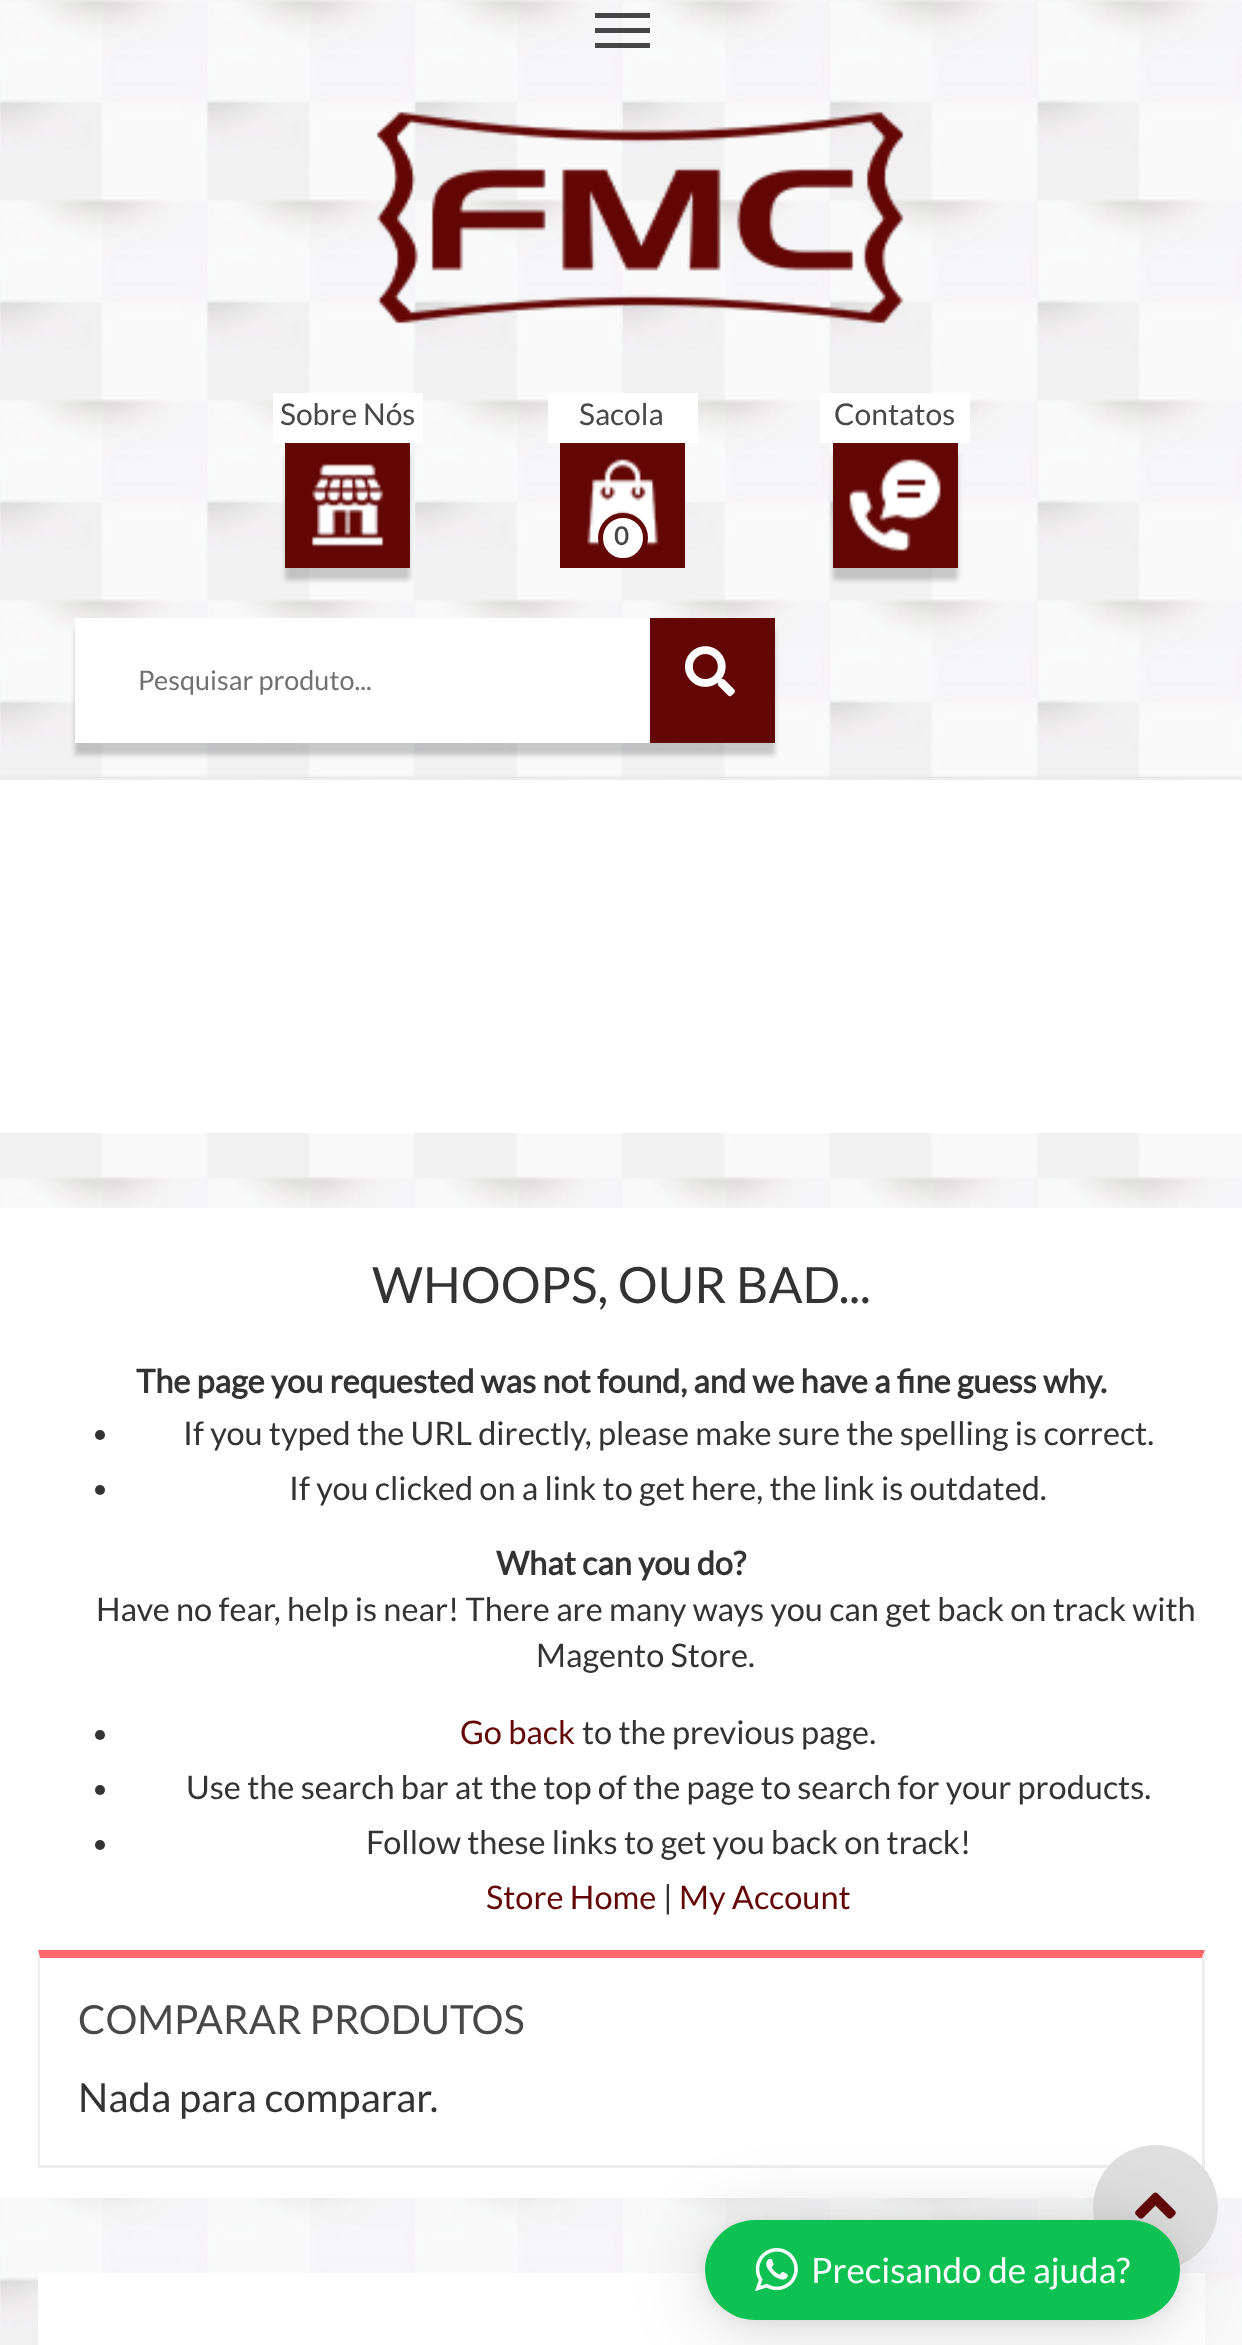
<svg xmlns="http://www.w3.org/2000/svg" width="1242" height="2345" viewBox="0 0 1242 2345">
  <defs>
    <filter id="blur1" x="-50%" y="-200%" width="200%" height="500%"><feGaussianBlur stdDeviation="2.5"/></filter>
    <filter id="blur2" x="-50%" y="-200%" width="200%" height="500%"><feGaussianBlur stdDeviation="40"/></filter>
    <filter id="blur3" x="-50%" y="-200%" width="200%" height="500%"><feGaussianBlur stdDeviation="7.5"/></filter>
  </defs>
  <rect width="100%" height="100%" fill="#ffffff"/>
  <image x="0" y="0" width="1242" height="777" href="img1.png"/>
  <rect x="595" y="13" width="55" height="5" fill="#474646"/>
  <rect x="595" y="28" width="55" height="5" fill="#474646"/>
  <rect x="595" y="43" width="55" height="5" fill="#474646"/>
  <image x="376" y="111" width="528" height="213" href="img2.png"/>
  <rect x="285" y="455" width="125" height="125" fill="#000000" fill-opacity="0.2" filter="url(#blur1)"/>
  <rect x="285" y="443" width="125" height="125" fill="#630706"/>
  <image x="311" y="463" width="73" height="84" href="img3.png"/>
  <rect x="273" y="393" width="150" height="50" fill="#ffffff"/>
  <text x="280" y="425" font-family="Lato" font-size="30" fill="#484848">Sobre Nós</text>
  <rect x="833" y="455" width="125" height="125" fill="#000000" fill-opacity="0.2" filter="url(#blur1)"/>
  <rect x="833" y="443" width="125" height="125" fill="#630706"/>
  <image x="849" y="458" width="92" height="94" href="img4.png"/>
  <rect x="820" y="393" width="150" height="50" fill="#ffffff"/>
  <text x="834" y="425" font-family="Lato" font-size="30" fill="#484848">Contatos</text>
  <rect x="560" y="443" width="125" height="125" fill="#630706"/>
  <image x="586" y="458" width="73" height="88" href="img5.png"/>
  <rect x="548" y="393" width="150" height="50" fill="#ffffff"/>
  <text x="579" y="425" font-family="Lato" font-size="30" fill="#484848">Sacola</text>
  <circle cx="623" cy="538" r="22.5" fill="#ffffff" stroke="#630706" stroke-width="5"/>
  <text x="614" y="545" font-family="Lato" font-size="25" font-weight="bold" fill="#484848">0</text>
  <rect x="75" y="630" width="700" height="125" fill="#000000" fill-opacity="0.2" filter="url(#blur1)"/>
  <rect x="75" y="618" width="575" height="125" fill="#ffffff"/>
  <text x="138" y="690" font-family="Lato" font-size="27" fill="#717171">Pesquisar produto...</text>
  <rect x="650" y="618" width="125" height="125" fill="#630706"/>
  <image x="685" y="646" width="50" height="51" href="img6.png"/>
  <image x="0" y="777" width="1242" height="1568" href="img7.png"/>
  <rect x="0" y="778" width="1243" height="3" fill="#dddddd" filter="url(#blur1)"/>
  <rect x="25" y="778" width="1217" height="2" fill="#ededed"/>
  <rect x="0" y="780" width="1242" height="353" fill="#ffffff"/>
  <rect x="0" y="1208" width="1242" height="990" fill="#ffffff"/>
  <text x="372" y="1303" font-family="Lato" font-size="50" fill="#333333">WHOOPS, OUR BAD...</text>
  <text x="136" y="1393" font-family="Lato" font-size="32.5" font-weight="bold" fill="#333333">The page you requested was not found, and we have a fine guess why.</text>
  <circle cx="100" cy="1435" r="5" fill="#333333"/>
  <text x="183" y="1445" font-family="Lato" font-size="32.5" fill="#333333">If you typed the URL directly, please make sure the spelling is correct.</text>
  <circle cx="100" cy="1490" r="5" fill="#333333"/>
  <text x="289" y="1500" font-family="Lato" font-size="32.5" fill="#333333">If you clicked on a link to get here, the link is outdated.</text>
  <text x="496" y="1575" font-family="Lato" font-size="32.5" font-weight="bold" fill="#333333">What can you do?</text>
  <text x="96" y="1621" font-family="Lato" font-size="32.5" fill="#333333">Have no fear, help is near! There are many ways you can get back on track with</text>
  <text x="536" y="1667" font-family="Lato" font-size="32.5" fill="#333333">Magento Store.</text>
  <circle cx="100" cy="1735" r="5" fill="#333333"/>
  <text x="460" y="1744" font-family="Lato" font-size="32.5" fill="#630706">Go back</text>
  <text x="582" y="1744" font-family="Lato" font-size="32.5" fill="#333333">to the previous page.</text>
  <circle cx="100" cy="1790" r="5" fill="#333333"/>
  <text x="186" y="1799" font-family="Lato" font-size="32.5" fill="#333333">Use the search bar at the top of the page to search for your products.</text>
  <circle cx="100" cy="1845" r="5" fill="#333333"/>
  <text x="366" y="1854" font-family="Lato" font-size="32.5" fill="#333333">Follow these links to get you back on track!</text>
  <text x="486" y="1909" font-family="Lato" font-size="32.5" fill="#630706">Store Home</text>
  <text x="663" y="1909" font-family="Lato" font-size="32.5" fill="#333333">|</text>
  <text x="679" y="1909" font-family="Lato" font-size="32.5" fill="#630706">My Account</text>
  <path d="M38 1950H1205L1202 1958H40Z" fill="#fc686c"/>
  <path d="M1205 1950V2168L1202 2165V1958Z" fill="#ededed"/>
  <rect x="38" y="2165" width="1167" height="3" fill="#ededed"/>
  <path d="M38 2168V1950L40 1958V2165Z" fill="#ededed"/>
  <text x="78" y="2034" font-family="Lato" font-size="40" fill="#484848">COMPARAR PRODUTOS</text>
  <text x="78" y="2112" font-family="Lato" font-size="40" fill="#333333">Nada para comparar.</text>
  <rect x="38" y="2273" width="1167" height="72" fill="#ffffff"/>
  <circle cx="1155.5" cy="2207.5" r="62.5" fill="#dfdfdf"/>
  <image x="1135" y="2192" width="41" height="27" href="img8.png"/>
  <rect x="705" y="2225" width="475" height="100" rx="50" fill="#000000" fill-opacity="0.16" filter="url(#blur2)"/>
  <rect x="705" y="2223" width="475" height="100" rx="50" fill="#000000" fill-opacity="0.06" filter="url(#blur3)"/>
  <rect x="705" y="2220" width="475" height="100" rx="50" fill="#0dc152"/>
  <image x="755" y="2248" width="43" height="44" href="img9.png"/>
  <text x="811" y="2283" font-family="Lato" font-size="35" fill="#ffffff">Precisando de ajuda?</text>
</svg>
